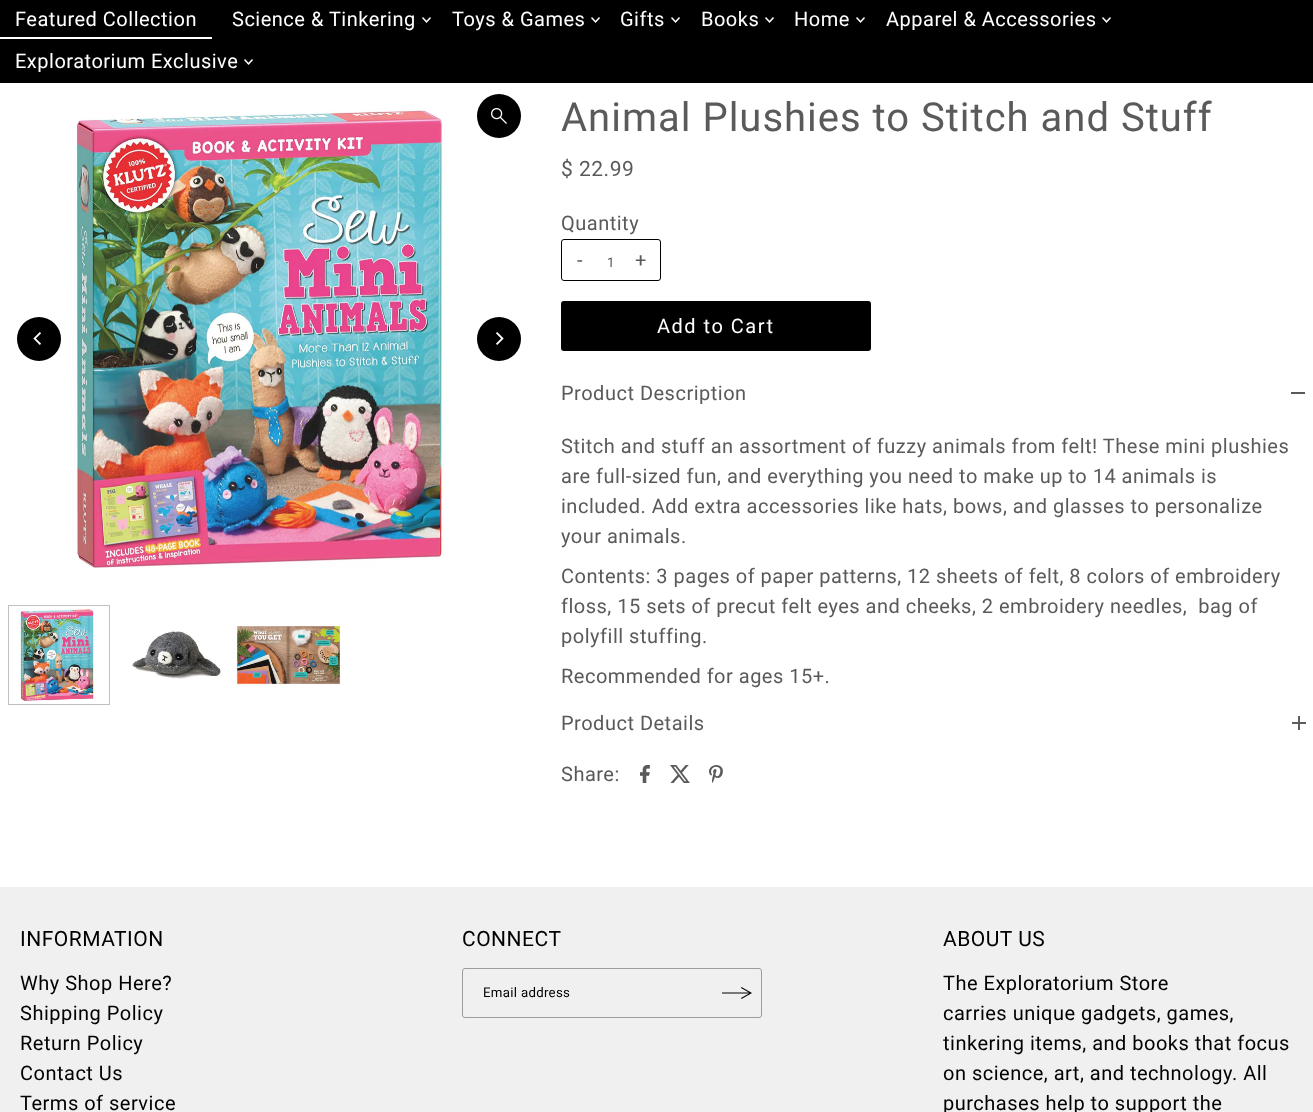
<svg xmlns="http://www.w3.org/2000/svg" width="1313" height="1112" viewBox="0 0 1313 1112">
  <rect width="100%" height="100%" fill="#ffffff"/>
  <rect x="0" y="0" width="1313" height="83" fill="#000000"/>
  <text x="15" y="26" font-family="Roboto" font-size="20" letter-spacing="0.5" fill="#ffffff">Featured Collection</text>
  <rect x="0" y="37" width="212" height="2" fill="#ffffff"/>
  <text x="232" y="26" font-family="Roboto" font-size="20" letter-spacing="0.5" fill="#ffffff">Science &amp; Tinkering</text>
  <image x="422" y="17" width="9" height="6" href="img1.png"/>
  <text x="452" y="26" font-family="Roboto" font-size="20" letter-spacing="0.5" fill="#ffffff">Toys &amp; Games</text>
  <image x="591" y="17" width="9" height="6" href="img1.png"/>
  <text x="620" y="26" font-family="Roboto" font-size="20" letter-spacing="0.5" fill="#ffffff">Gifts</text>
  <image x="671" y="17" width="9" height="6" href="img1.png"/>
  <text x="701" y="26" font-family="Roboto" font-size="20" letter-spacing="0.5" fill="#ffffff">Books</text>
  <image x="765" y="17" width="9" height="6" href="img1.png"/>
  <text x="794" y="26" font-family="Roboto" font-size="20" letter-spacing="0.5" fill="#ffffff">Home</text>
  <image x="856" y="17" width="9" height="6" href="img1.png"/>
  <text x="886" y="26" font-family="Roboto" font-size="20" letter-spacing="0.5" fill="#ffffff">Apparel &amp; Accessories</text>
  <image x="1102" y="17" width="9" height="6" href="img1.png"/>
  <text x="15" y="68" font-family="Roboto" font-size="20" letter-spacing="0.5" fill="#ffffff">Exploratorium Exclusive</text>
  <image x="244" y="59" width="9" height="6" href="img1.png"/>
  <circle cx="39" cy="339" r="22" fill="#000000"/>
  <image x="33" y="332" width="8" height="13" href="img2.png"/>
  <image x="76" y="108" width="369" height="460" href="img3.png"/>
  <circle cx="499" cy="116" r="22" fill="#000000"/>
  <image x="491" y="108" width="16" height="16" href="img4.png"/>
  <circle cx="499" cy="339" r="22" fill="#000000"/>
  <image x="496" y="332" width="8" height="13" href="img5.png"/>
  <image x="19" y="608" width="75" height="94" href="img6.png"/>
  <rect x="8.5" y="605.5" width="101" height="99" fill="none" stroke="#c0c0c0"/>
  <image x="132" y="631" width="90" height="48" href="img7.png"/>
  <image x="236" y="625" width="105" height="61" href="img8.png"/>
  <text x="561" y="131" font-family="Roboto" font-size="40" letter-spacing="1" fill="#5a5a5a">Animal Plushies to Stitch and Stuff</text>
  <text x="561" y="176" font-family="Roboto" font-size="21" letter-spacing="0.5" fill="#5a5a5a">$ 22.99</text>
  <text x="561" y="230" font-family="Roboto" font-size="20" letter-spacing="0.5" fill="#5a5a5a">Quantity</text>
  <rect x="561.5" y="239.5" width="99" height="41" rx="2.5" fill="none" stroke="#000000"/>
  <text x="577" y="267" font-family="Roboto" font-size="20" letter-spacing="1.5" fill="#5a5a5a">-</text>
  <text x="607" y="267" font-family="Roboto" font-size="13.25" letter-spacing="0.3" fill="#5a5a5a">1</text>
  <text x="635" y="267" font-family="Roboto" font-size="20" letter-spacing="1.5" fill="#5a5a5a">+</text>
  <rect x="561" y="301" width="310" height="50" rx="3" fill="#000000"/>
  <text x="657" y="333" font-family="Roboto" font-size="20" letter-spacing="1.5" fill="#ffffff">Add to Cart</text>
  <text x="561" y="400" font-family="Roboto" font-size="20" letter-spacing="0.5" fill="#5a5a5a">Product Description</text>
  <rect x="1291" y="392" width="14" height="2" fill="#5a5a5a"/>
  <text x="561" y="453" font-family="Roboto" font-size="20" letter-spacing="0.5" fill="#5a5a5a">Stitch and stuff an assortment of fuzzy animals from felt! These mini plushies</text>
  <text x="561" y="483" font-family="Roboto" font-size="20" letter-spacing="0.5" fill="#5a5a5a">are full-sized fun, and everything you need to make up to 14 animals is</text>
  <text x="561" y="513" font-family="Roboto" font-size="20" letter-spacing="0.5" fill="#5a5a5a">included. Add extra accessories like hats, bows, and glasses to personalize</text>
  <text x="561" y="543" font-family="Roboto" font-size="20" letter-spacing="0.5" fill="#5a5a5a">your animals.</text>
  <text x="561" y="583" font-family="Roboto" font-size="20" letter-spacing="0.5" fill="#5a5a5a">Contents: 3 pages of paper patterns, 12 sheets of felt, 8 colors of embroidery</text>
  <text x="561" y="613" font-family="Roboto" font-size="20" letter-spacing="0.5" fill="#5a5a5a" xml:space="preserve">floss, 15 sets of precut felt eyes and cheeks, 2 embroidery needles,  bag of</text>
  <text x="561" y="643" font-family="Roboto" font-size="20" letter-spacing="0.5" fill="#5a5a5a">polyfill stuffing.</text>
  <text x="561" y="683" font-family="Roboto" font-size="20" letter-spacing="0.5" fill="#5a5a5a">Recommended for ages 15+.</text>
  <text x="561" y="730" font-family="Roboto" font-size="20" letter-spacing="0.5" fill="#5a5a5a">Product Details</text>
  <image x="1292" y="716" width="14" height="14" href="img9.png"/>
  <text x="561" y="781" font-family="Roboto" font-size="20" letter-spacing="0.5" fill="#5a5a5a">Share:</text>
  <image x="640" y="765" width="10" height="18" href="img10.png"/>
  <image x="670" y="765" width="20" height="18" href="img11.png"/>
  <image x="709" y="765" width="14" height="18" href="img12.png"/>
  <rect x="0" y="887" width="1313" height="225" fill="#f0f0f0"/>
  <text x="20" y="946" font-family="Roboto" font-size="21" letter-spacing="0.5" fill="#000000">INFORMATION</text>
  <text x="20" y="990" font-family="Roboto" font-size="20" letter-spacing="0.5" fill="#000000">Why Shop Here?</text>
  <text x="20" y="1020" font-family="Roboto" font-size="20" letter-spacing="0.5" fill="#000000">Shipping Policy</text>
  <text x="20" y="1050" font-family="Roboto" font-size="20" letter-spacing="0.5" fill="#000000">Return Policy</text>
  <text x="20" y="1080" font-family="Roboto" font-size="20" letter-spacing="0.5" fill="#000000">Contact Us</text>
  <text x="20" y="1110" font-family="Roboto" font-size="20" letter-spacing="0.5" fill="#000000">Terms of service</text>
  <text x="462" y="946" font-family="Roboto" font-size="21" letter-spacing="0.5" fill="#000000">CONNECT</text>
  <rect x="462.5" y="968.5" width="299" height="49" rx="2.5" fill="none" stroke="#9c9c9c"/>
  <text x="483" y="997" font-family="Roboto" font-size="13.25" letter-spacing="0.3" fill="#000000">Email address</text>
  <path d="M741.5 987L752 993L741.5 999L741 998L749 993.5H722V992.5H749L741 988Z" fill="#000000"/>
  <text x="943" y="946" font-family="Roboto" font-size="21" letter-spacing="0.5" fill="#000000">ABOUT US</text>
  <text x="943" y="990" font-family="Roboto" font-size="20" letter-spacing="0.5" fill="#000000">The Exploratorium Store</text>
  <text x="943" y="1020" font-family="Roboto" font-size="20" letter-spacing="0.5" fill="#000000">carries unique gadgets, games,</text>
  <text x="943" y="1050" font-family="Roboto" font-size="20" letter-spacing="0.5" fill="#000000">tinkering items, and books that focus</text>
  <text x="943" y="1080" font-family="Roboto" font-size="20" letter-spacing="0.5" fill="#000000">on science, art, and technology. All</text>
  <text x="943" y="1110" font-family="Roboto" font-size="20" letter-spacing="0.5" fill="#000000">purchases help to support the</text>
</svg>
